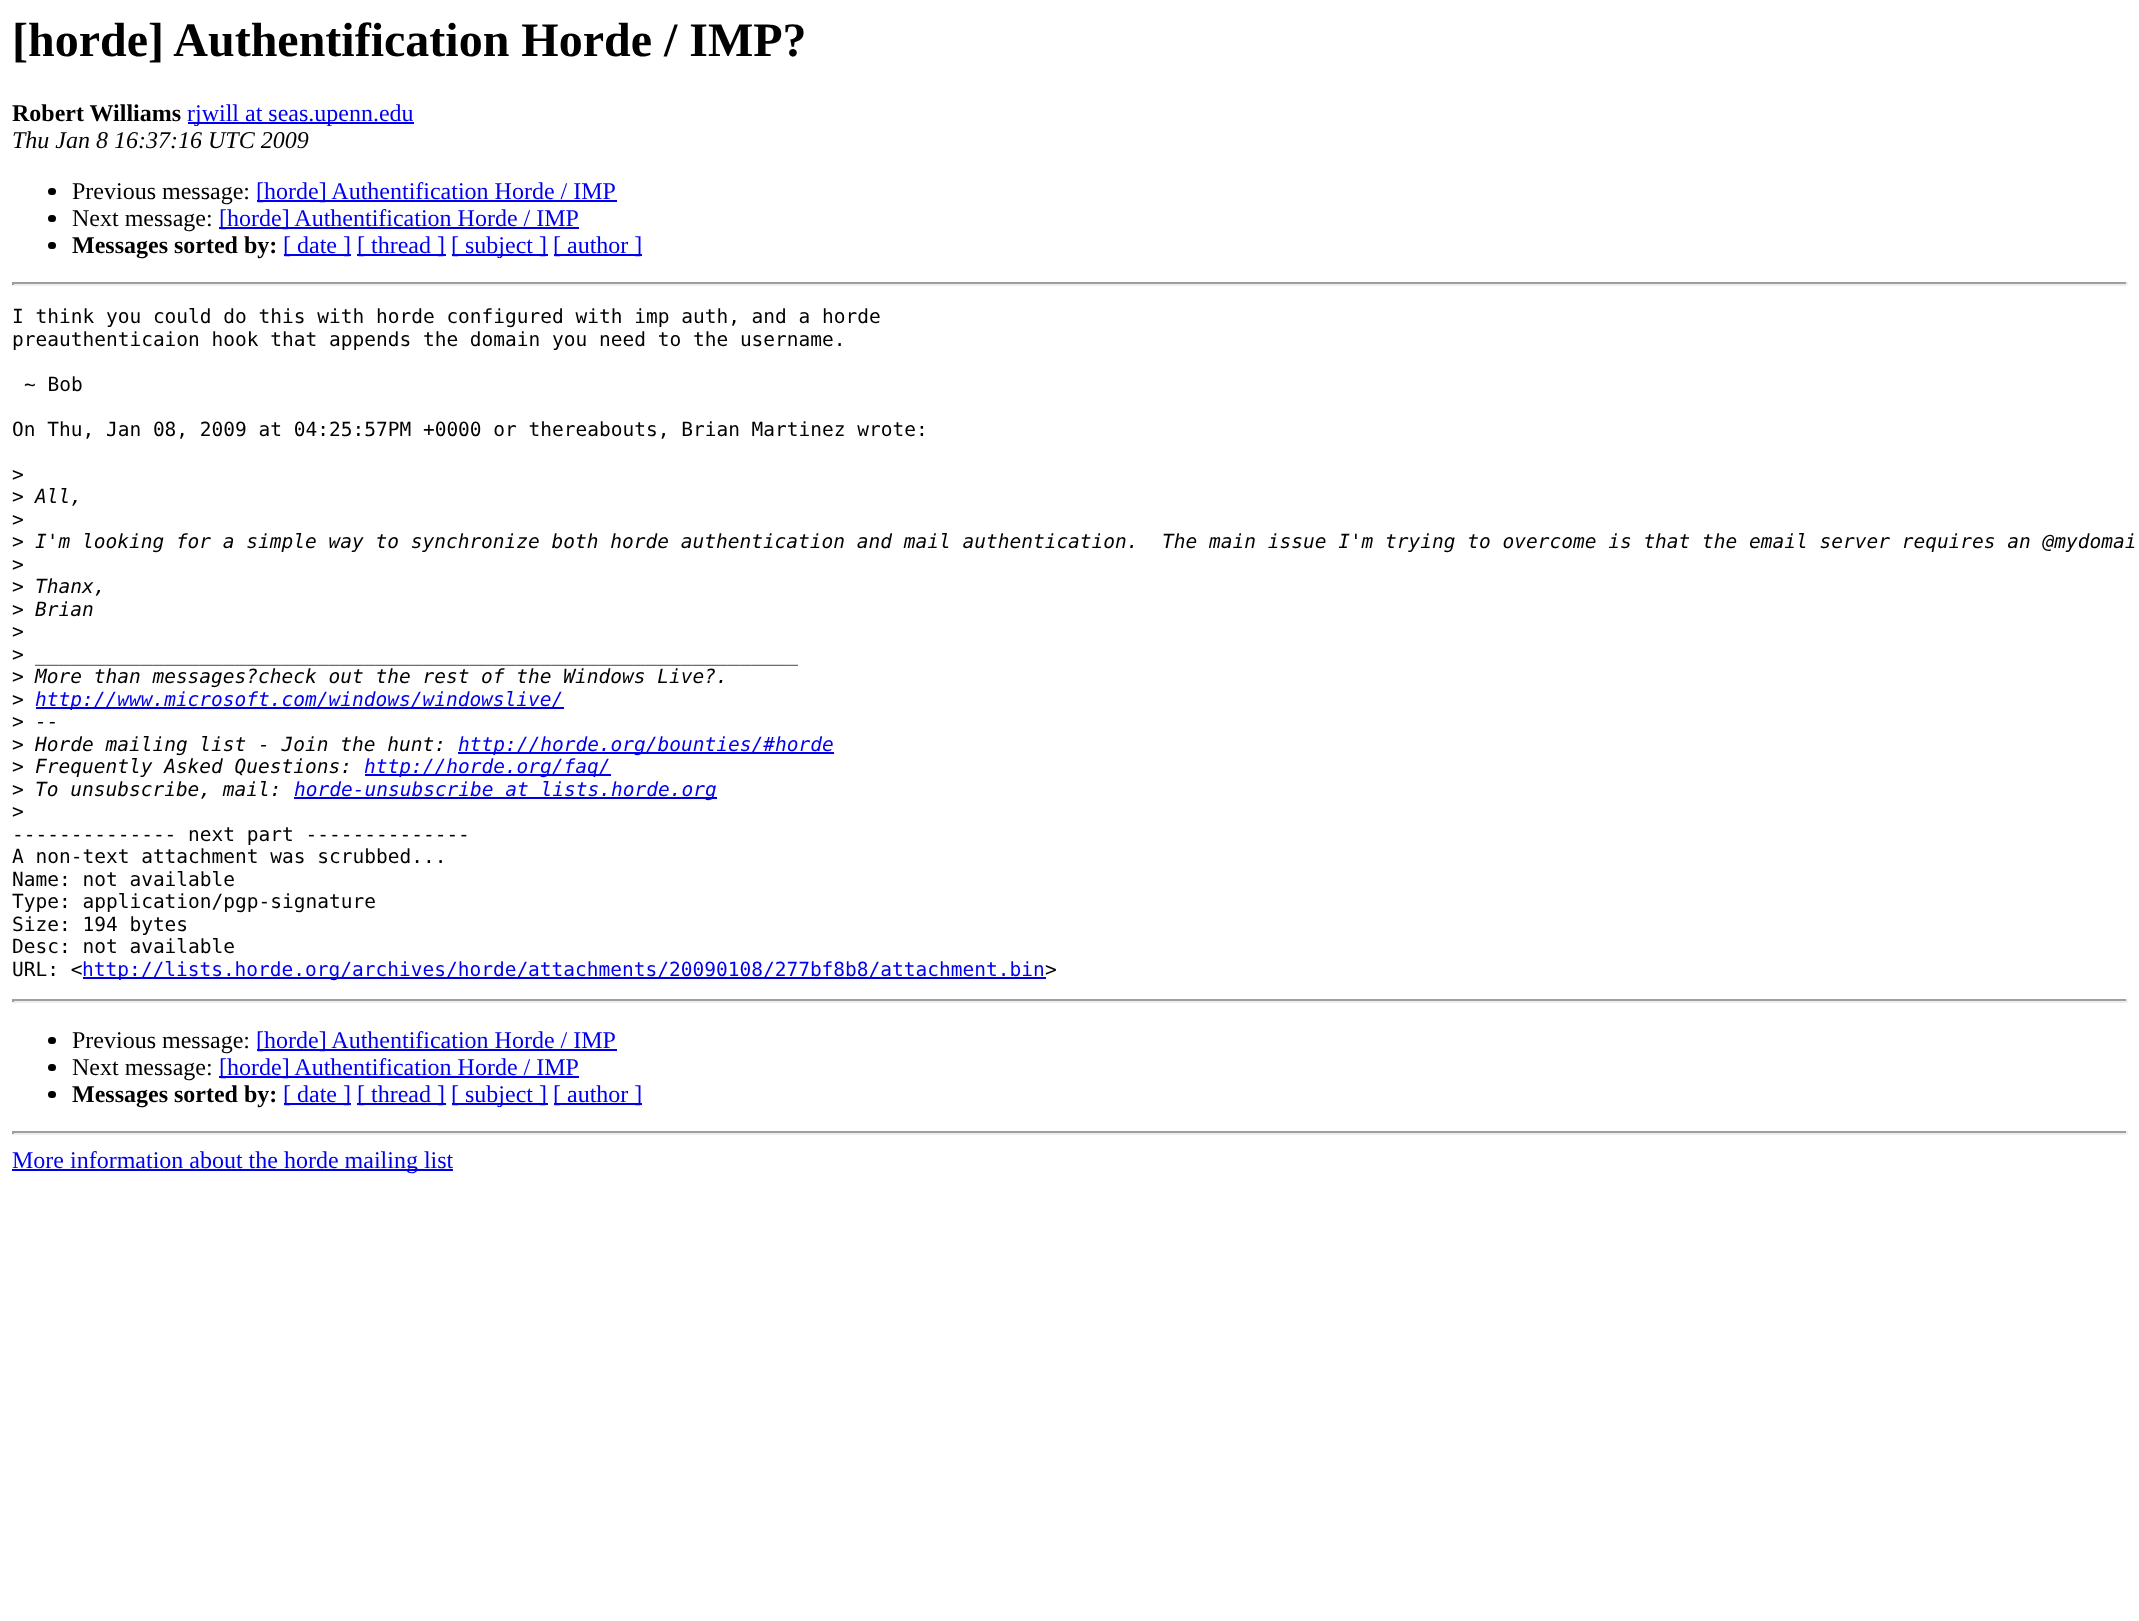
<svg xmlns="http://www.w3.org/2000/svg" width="2139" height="1621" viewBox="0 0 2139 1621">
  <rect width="100%" height="100%" fill="#ffffff"/>
  <text x="12" y="56" font-family="Liberation Serif" font-size="48" font-weight="bold" fill="#000000">[horde] Authentification Horde / IMP?</text>
  <text x="12" y="121" font-family="Liberation Serif" font-size="24" font-weight="bold" fill="#000000">Robert Williams</text>
  <rect x="188" y="122" width="226" height="2" fill="#0000ee"/>
  <text x="187" y="121" font-family="Liberation Serif" font-size="24" fill="#0000ee">rjwill at seas.upenn.edu</text>
  <text x="12" y="148" font-family="Liberation Serif" font-size="24" font-style="italic" fill="#000000">Thu Jan 8 16:37:16 UTC 2009</text>
  <rect x="48" y="188" width="8" height="7" rx="3.5" fill="#000000"/>
  <text x="72" y="199" font-family="Liberation Serif" font-size="24" fill="#000000">Previous message:</text>
  <rect x="257" y="200" width="360" height="2" fill="#0000ee"/>
  <text x="256" y="199" font-family="Liberation Serif" font-size="24" fill="#0000ee">[horde] Authentification Horde / IMP</text>
  <rect x="48" y="215" width="8" height="7" rx="3.5" fill="#000000"/>
  <text x="72" y="226" font-family="Liberation Serif" font-size="24" fill="#000000">Next message:</text>
  <rect x="219" y="227" width="360" height="2" fill="#0000ee"/>
  <text x="219" y="226" font-family="Liberation Serif" font-size="24" fill="#0000ee">[horde] Authentification Horde / IMP</text>
  <rect x="48" y="242" width="8" height="7" rx="3.5" fill="#000000"/>
  <text x="72" y="253" font-family="Liberation Serif" font-size="24" font-weight="bold" fill="#000000">Messages sorted by:</text>
  <rect x="284" y="254" width="67" height="2" fill="#0000ee"/>
  <text x="283" y="253" font-family="Liberation Serif" font-size="24" fill="#0000ee">[ date ]</text>
  <rect x="357" y="254" width="89" height="2" fill="#0000ee"/>
  <text x="357" y="253" font-family="Liberation Serif" font-size="24" fill="#0000ee">[ thread ]</text>
  <rect x="452" y="254" width="96" height="2" fill="#0000ee"/>
  <text x="451" y="253" font-family="Liberation Serif" font-size="24" fill="#0000ee">[ subject ]</text>
  <rect x="554" y="254" width="88" height="2" fill="#0000ee"/>
  <text x="553" y="253" font-family="Liberation Serif" font-size="24" fill="#0000ee">[ author ]</text>
  <rect x="12" y="282" width="2115" height="2" fill="#9f9f9f"/>
  <rect x="2126" y="282" width="2" height="3" fill="#eeeeee"/>
  <rect x="12" y="284" width="2115" height="2" fill="#eeeeee"/>
  <rect x="12" y="282" width="2" height="3" fill="#9f9f9f"/>
  <text x="12" y="323" font-family="DejaVu Sans Mono" font-size="19.5" fill="#000000">I think you could do this with horde configured with imp auth, and a horde</text>
  <text x="12" y="346" font-family="DejaVu Sans Mono" font-size="19.5" fill="#000000">preauthenticaion hook that appends the domain you need to the username.</text>
  <text x="24" y="391" font-family="DejaVu Sans Mono" font-size="19.5" fill="#000000">~ Bob</text>
  <text x="12" y="436" font-family="DejaVu Sans Mono" font-size="19.5" fill="#000000">On Thu, Jan 08, 2009 at 04:25:57PM +0000 or thereabouts, Brian Martinez wrote:</text>
  <text x="12" y="481" font-family="DejaVu Sans Mono" font-size="19.5" fill="#000000">&gt;</text>
  <text x="12" y="503" font-family="DejaVu Sans Mono" font-size="19.5" fill="#000000">&gt;</text>
  <text x="35" y="503" font-family="DejaVu Sans Mono" font-size="19.5" font-style="italic" fill="#000000">All,</text>
  <text x="12" y="526" font-family="DejaVu Sans Mono" font-size="19.5" fill="#000000">&gt;</text>
  <text x="12" y="548" font-family="DejaVu Sans Mono" font-size="19.5" fill="#000000">&gt;</text>
  <text x="35" y="548" font-family="DejaVu Sans Mono" font-size="19.5" font-style="italic" fill="#000000" xml:space="preserve">I'm looking for a simple way to synchronize both horde authentication and mail authentication.  The main issue I'm trying to overcome is that the email server requires an @mydomai</text>
  <text x="12" y="571" font-family="DejaVu Sans Mono" font-size="19.5" fill="#000000">&gt;</text>
  <text x="12" y="593" font-family="DejaVu Sans Mono" font-size="19.5" fill="#000000">&gt;</text>
  <text x="35" y="593" font-family="DejaVu Sans Mono" font-size="19.5" font-style="italic" fill="#000000">Thanx,</text>
  <text x="12" y="616" font-family="DejaVu Sans Mono" font-size="19.5" fill="#000000">&gt;</text>
  <text x="35" y="616" font-family="DejaVu Sans Mono" font-size="19.5" font-style="italic" fill="#000000">Brian</text>
  <text x="12" y="638" font-family="DejaVu Sans Mono" font-size="19.5" fill="#000000">&gt;</text>
  <text x="12" y="661" font-family="DejaVu Sans Mono" font-size="19.5" fill="#000000">&gt;</text>
  <text x="35" y="661" font-family="DejaVu Sans Mono" font-size="19.5" font-style="italic" fill="#000000">_________________________________________________________________</text>
  <text x="12" y="683" font-family="DejaVu Sans Mono" font-size="19.5" fill="#000000">&gt;</text>
  <text x="35" y="683" font-family="DejaVu Sans Mono" font-size="19.5" font-style="italic" fill="#000000">More than messages?check out the rest of the Windows Live?.</text>
  <text x="12" y="706" font-family="DejaVu Sans Mono" font-size="19.5" fill="#000000">&gt;</text>
  <rect x="36" y="707" width="528" height="2" fill="#0000ee"/>
  <text x="35" y="706" font-family="DejaVu Sans Mono" font-size="19.5" font-style="italic" fill="#0000ee">http://www.microsoft.com/windows/windowslive/</text>
  <text x="12" y="728" font-family="DejaVu Sans Mono" font-size="19.5" fill="#000000">&gt;</text>
  <text x="35" y="728" font-family="DejaVu Sans Mono" font-size="19.5" font-style="italic" fill="#000000">--</text>
  <text x="12" y="751" font-family="DejaVu Sans Mono" font-size="19.5" fill="#000000">&gt;</text>
  <text x="35" y="751" font-family="DejaVu Sans Mono" font-size="19.5" font-style="italic" fill="#000000">Horde mailing list - Join the hunt:</text>
  <rect x="458" y="752" width="376" height="2" fill="#0000ee"/>
  <text x="458" y="751" font-family="DejaVu Sans Mono" font-size="19.5" font-style="italic" fill="#0000ee">http://horde.org/bounties/#horde</text>
  <text x="12" y="773" font-family="DejaVu Sans Mono" font-size="19.5" fill="#000000">&gt;</text>
  <text x="35" y="773" font-family="DejaVu Sans Mono" font-size="19.5" font-style="italic" fill="#000000">Frequently Asked Questions:</text>
  <rect x="365" y="774" width="246" height="2" fill="#0000ee"/>
  <text x="364" y="773" font-family="DejaVu Sans Mono" font-size="19.5" font-style="italic" fill="#0000ee">http://horde.org/faq/</text>
  <text x="12" y="796" font-family="DejaVu Sans Mono" font-size="19.5" fill="#000000">&gt;</text>
  <text x="35" y="796" font-family="DejaVu Sans Mono" font-size="19.5" font-style="italic" fill="#000000">To unsubscribe, mail:</text>
  <rect x="294" y="797" width="423" height="2" fill="#0000ee"/>
  <text x="294" y="796" font-family="DejaVu Sans Mono" font-size="19.5" font-style="italic" fill="#0000ee">horde-unsubscribe at lists.horde.org</text>
  <text x="12" y="818" font-family="DejaVu Sans Mono" font-size="19.5" fill="#000000">&gt;</text>
  <text x="12" y="841" font-family="DejaVu Sans Mono" font-size="19.5" fill="#000000">-------------- next part --------------</text>
  <text x="12" y="863" font-family="DejaVu Sans Mono" font-size="19.5" fill="#000000">A non-text attachment was scrubbed...</text>
  <text x="12" y="886" font-family="DejaVu Sans Mono" font-size="19.5" fill="#000000">Name: not available</text>
  <text x="12" y="908" font-family="DejaVu Sans Mono" font-size="19.5" fill="#000000">Type: application/pgp-signature</text>
  <text x="12" y="931" font-family="DejaVu Sans Mono" font-size="19.5" fill="#000000">Size: 194 bytes</text>
  <text x="12" y="953" font-family="DejaVu Sans Mono" font-size="19.5" fill="#000000">Desc: not available</text>
  <text x="12" y="976" font-family="DejaVu Sans Mono" font-size="19.5" fill="#000000">URL: &lt;</text>
  <rect x="83" y="977" width="963" height="2" fill="#0000ee"/>
  <text x="82" y="976" font-family="DejaVu Sans Mono" font-size="19.5" fill="#0000ee">http://lists.horde.org/archives/horde/attachments/20090108/277bf8b8/attachment.bin</text>
  <text x="1045" y="976" font-family="DejaVu Sans Mono" font-size="19.5" fill="#000000">&gt;</text>
  <rect x="12" y="999" width="2115" height="2" fill="#9f9f9f"/>
  <rect x="2126" y="999" width="2" height="3" fill="#eeeeee"/>
  <rect x="12" y="1001" width="2115" height="2" fill="#eeeeee"/>
  <rect x="12" y="999" width="2" height="3" fill="#9f9f9f"/>
  <rect x="48" y="1037" width="8" height="7" rx="3.5" fill="#000000"/>
  <text x="72" y="1048" font-family="Liberation Serif" font-size="24" fill="#000000">Previous message:</text>
  <rect x="257" y="1049" width="360" height="2" fill="#0000ee"/>
  <text x="256" y="1048" font-family="Liberation Serif" font-size="24" fill="#0000ee">[horde] Authentification Horde / IMP</text>
  <rect x="48" y="1064" width="8" height="7" rx="3.5" fill="#000000"/>
  <text x="72" y="1075" font-family="Liberation Serif" font-size="24" fill="#000000">Next message:</text>
  <rect x="219" y="1076" width="360" height="2" fill="#0000ee"/>
  <text x="219" y="1075" font-family="Liberation Serif" font-size="24" fill="#0000ee">[horde] Authentification Horde / IMP</text>
  <rect x="48" y="1091" width="8" height="7" rx="3.5" fill="#000000"/>
  <text x="72" y="1102" font-family="Liberation Serif" font-size="24" font-weight="bold" fill="#000000">Messages sorted by:</text>
  <rect x="284" y="1103" width="67" height="2" fill="#0000ee"/>
  <text x="283" y="1102" font-family="Liberation Serif" font-size="24" fill="#0000ee">[ date ]</text>
  <rect x="357" y="1103" width="89" height="2" fill="#0000ee"/>
  <text x="357" y="1102" font-family="Liberation Serif" font-size="24" fill="#0000ee">[ thread ]</text>
  <rect x="452" y="1103" width="96" height="2" fill="#0000ee"/>
  <text x="451" y="1102" font-family="Liberation Serif" font-size="24" fill="#0000ee">[ subject ]</text>
  <rect x="554" y="1103" width="88" height="2" fill="#0000ee"/>
  <text x="553" y="1102" font-family="Liberation Serif" font-size="24" fill="#0000ee">[ author ]</text>
  <rect x="12" y="1131" width="2115" height="2" fill="#9f9f9f"/>
  <rect x="2126" y="1131" width="2" height="3" fill="#eeeeee"/>
  <rect x="12" y="1133" width="2115" height="2" fill="#eeeeee"/>
  <rect x="12" y="1131" width="2" height="3" fill="#9f9f9f"/>
  <rect x="12" y="1169" width="441" height="2" fill="#0000ee"/>
  <text x="12" y="1168" font-family="Liberation Serif" font-size="24" fill="#0000ee">More information about the horde mailing list</text>
</svg>
